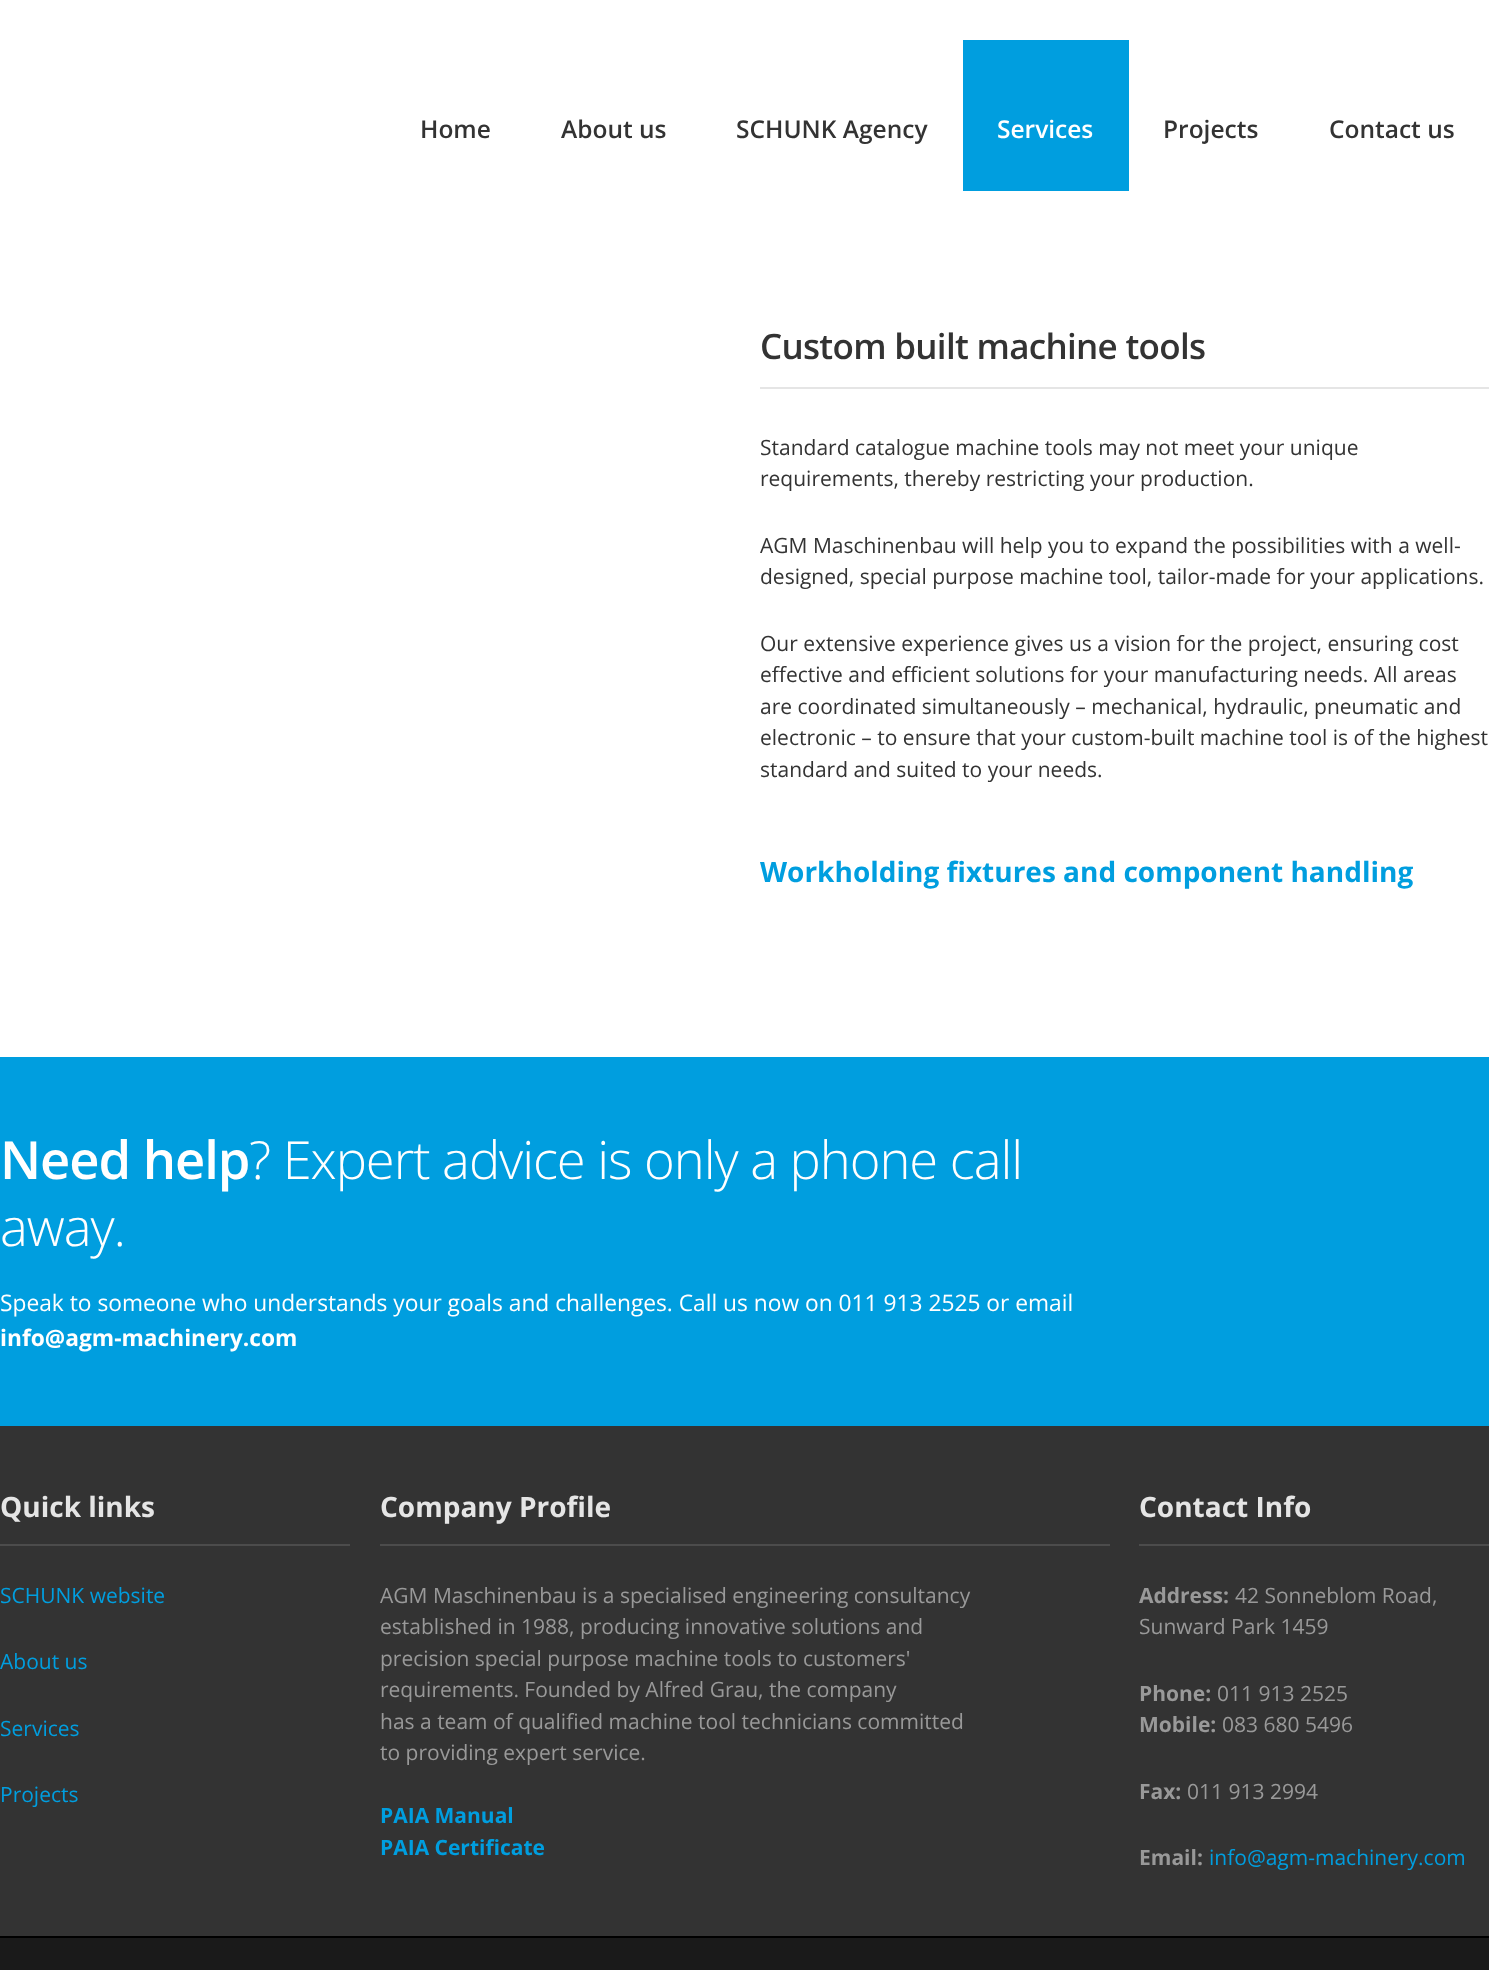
<svg xmlns="http://www.w3.org/2000/svg" width="1489" height="1970" viewBox="0 0 1489 1970">
  <rect width="100%" height="100%" fill="#ffffff"/>
  <text x="420" y="138" font-family="Open Sans" font-size="24.5" font-weight="600" fill="#333333">Home</text>
  <text x="561" y="138" font-family="Open Sans" font-size="24.5" font-weight="600" fill="#333333">About us</text>
  <text x="736" y="138" font-family="Open Sans" font-size="24.5" font-weight="600" fill="#333333">SCHUNK Agency</text>
  <rect x="963" y="40" width="166" height="151" fill="#009edf"/>
  <text x="997" y="138" font-family="Open Sans" font-size="24.5" font-weight="600" fill="#ffffff">Services</text>
  <text x="1163" y="138" font-family="Open Sans" font-size="24.5" font-weight="600" fill="#333333">Projects</text>
  <text x="1329" y="138" font-family="Open Sans" font-size="24.5" font-weight="600" fill="#333333">Contact us</text>
  <rect x="760" y="387" width="729" height="2" fill="#e5e5e5"/>
  <text x="760" y="359" font-family="Open Sans" font-size="35" font-weight="600" letter-spacing="-0.7" fill="#333333">Custom built machine tools</text>
  <text x="760" y="455" font-family="Open Sans" font-size="21" fill="#333333">Standard catalogue machine tools may not meet your unique</text>
  <text x="760" y="486" font-family="Open Sans" font-size="21" fill="#333333">requirements, thereby restricting your production.</text>
  <text x="760" y="553" font-family="Open Sans" font-size="21" fill="#333333">AGM Maschinenbau will help you to expand the possibilities with a well-</text>
  <text x="760" y="584" font-family="Open Sans" font-size="21" fill="#333333">designed, special purpose machine tool, tailor-made for your applications.</text>
  <text x="760" y="651" font-family="Open Sans" font-size="21" fill="#333333">Our extensive experience gives us a vision for the project, ensuring cost</text>
  <text x="760" y="682" font-family="Open Sans" font-size="21" fill="#333333">effective and efficient solutions for your manufacturing needs. All areas</text>
  <text x="760" y="714" font-family="Open Sans" font-size="21" fill="#333333">are coordinated simultaneously – mechanical, hydraulic, pneumatic and</text>
  <text x="760" y="745" font-family="Open Sans" font-size="21" fill="#333333">electronic – to ensure that your custom-built machine tool is of the highest</text>
  <text x="760" y="777" font-family="Open Sans" font-size="21" fill="#333333">standard and suited to your needs.</text>
  <text x="760" y="882" font-family="Open Sans" font-size="28" font-weight="bold" fill="#009edf">Workholding fixtures and component handling</text>
  <rect x="0" y="1057" width="1489" height="369" fill="#009edf"/>
  <text x="0" y="1179" font-family="Open Sans" font-size="52.5" font-weight="600" letter-spacing="-1.05" fill="#ffffff">Need help</text>
  <text x="249" y="1179" font-family="Open Sans" font-size="52.5" font-weight="300" letter-spacing="-1.05" fill="#ffffff">? Expert advice is only a phone call</text>
  <text x="0" y="1246" font-family="Open Sans" font-size="52.5" font-weight="300" letter-spacing="-1.05" fill="#ffffff">away.</text>
  <text x="0" y="1311" font-family="Open Sans" font-size="22.75" fill="#ffffff">Speak to someone who understands your goals and challenges. Call us now on 011 913 2525 or email</text>
  <text x="0" y="1346" font-family="Open Sans" font-size="22.75" font-weight="bold" fill="#ffffff">info@agm-machinery.com</text>
  <rect x="0" y="1426" width="1489" height="510" fill="#333333"/>
  <rect x="0" y="1544" width="350" height="2" fill="#4c4c4c"/>
  <text x="0" y="1517" font-family="Open Sans" font-size="28" font-weight="bold" fill="#e5e5e5">Quick links</text>
  <text x="0" y="1603" font-family="Open Sans" font-size="21" fill="#009edf">SCHUNK website</text>
  <text x="0" y="1669" font-family="Open Sans" font-size="21" fill="#009edf">About us</text>
  <text x="0" y="1736" font-family="Open Sans" font-size="21" fill="#009edf">Services</text>
  <text x="0" y="1802" font-family="Open Sans" font-size="21" fill="#009edf">Projects</text>
  <rect x="380" y="1544" width="730" height="2" fill="#4c4c4c"/>
  <text x="380" y="1517" font-family="Open Sans" font-size="28" font-weight="bold" fill="#e5e5e5">Company Profile</text>
  <text x="380" y="1603" font-family="Open Sans" font-size="21" fill="#999999">AGM Maschinenbau is a specialised engineering consultancy</text>
  <text x="380" y="1634" font-family="Open Sans" font-size="21" fill="#999999">established in 1988, producing innovative solutions and</text>
  <text x="380" y="1666" font-family="Open Sans" font-size="21" fill="#999999">precision special purpose machine tools to customers'</text>
  <text x="380" y="1697" font-family="Open Sans" font-size="21" fill="#999999">requirements. Founded by Alfred Grau, the company</text>
  <text x="380" y="1729" font-family="Open Sans" font-size="21" fill="#999999">has a team of qualified machine tool technicians committed</text>
  <text x="380" y="1760" font-family="Open Sans" font-size="21" fill="#999999">to providing expert service.</text>
  <text x="380" y="1823" font-family="Open Sans" font-size="21" font-weight="bold" fill="#009edf">PAIA Manual</text>
  <text x="380" y="1855" font-family="Open Sans" font-size="21" font-weight="bold" fill="#009edf">PAIA Certificate</text>
  <rect x="1139" y="1544" width="350" height="2" fill="#4c4c4c"/>
  <text x="1139" y="1517" font-family="Open Sans" font-size="28" font-weight="bold" fill="#e5e5e5">Contact Info</text>
  <text x="1139" y="1603" font-family="Open Sans" font-size="21" font-weight="bold" fill="#999999">Address:</text>
  <text x="1235" y="1603" font-family="Open Sans" font-size="21" fill="#999999">42 Sonneblom Road,</text>
  <text x="1139" y="1634" font-family="Open Sans" font-size="21" fill="#999999">Sunward Park 1459</text>
  <text x="1139" y="1701" font-family="Open Sans" font-size="21" font-weight="bold" fill="#999999">Phone:</text>
  <text x="1217" y="1701" font-family="Open Sans" font-size="21" fill="#999999">011 913 2525</text>
  <text x="1139" y="1732" font-family="Open Sans" font-size="21" font-weight="bold" fill="#999999">Mobile:</text>
  <text x="1222" y="1732" font-family="Open Sans" font-size="21" fill="#999999">083 680 5496</text>
  <text x="1139" y="1799" font-family="Open Sans" font-size="21" font-weight="bold" fill="#999999">Fax:</text>
  <text x="1187" y="1799" font-family="Open Sans" font-size="21" fill="#999999">011 913 2994</text>
  <text x="1139" y="1865" font-family="Open Sans" font-size="21" font-weight="bold" fill="#999999">Email:</text>
  <text x="1209" y="1865" font-family="Open Sans" font-size="21" fill="#009edf">info@agm-machinery.com</text>
  <rect x="0" y="1938" width="1489" height="32" fill="#1a1a1a"/>
  <rect x="0" y="1936" width="1489" height="2" fill="#000000"/>
</svg>
